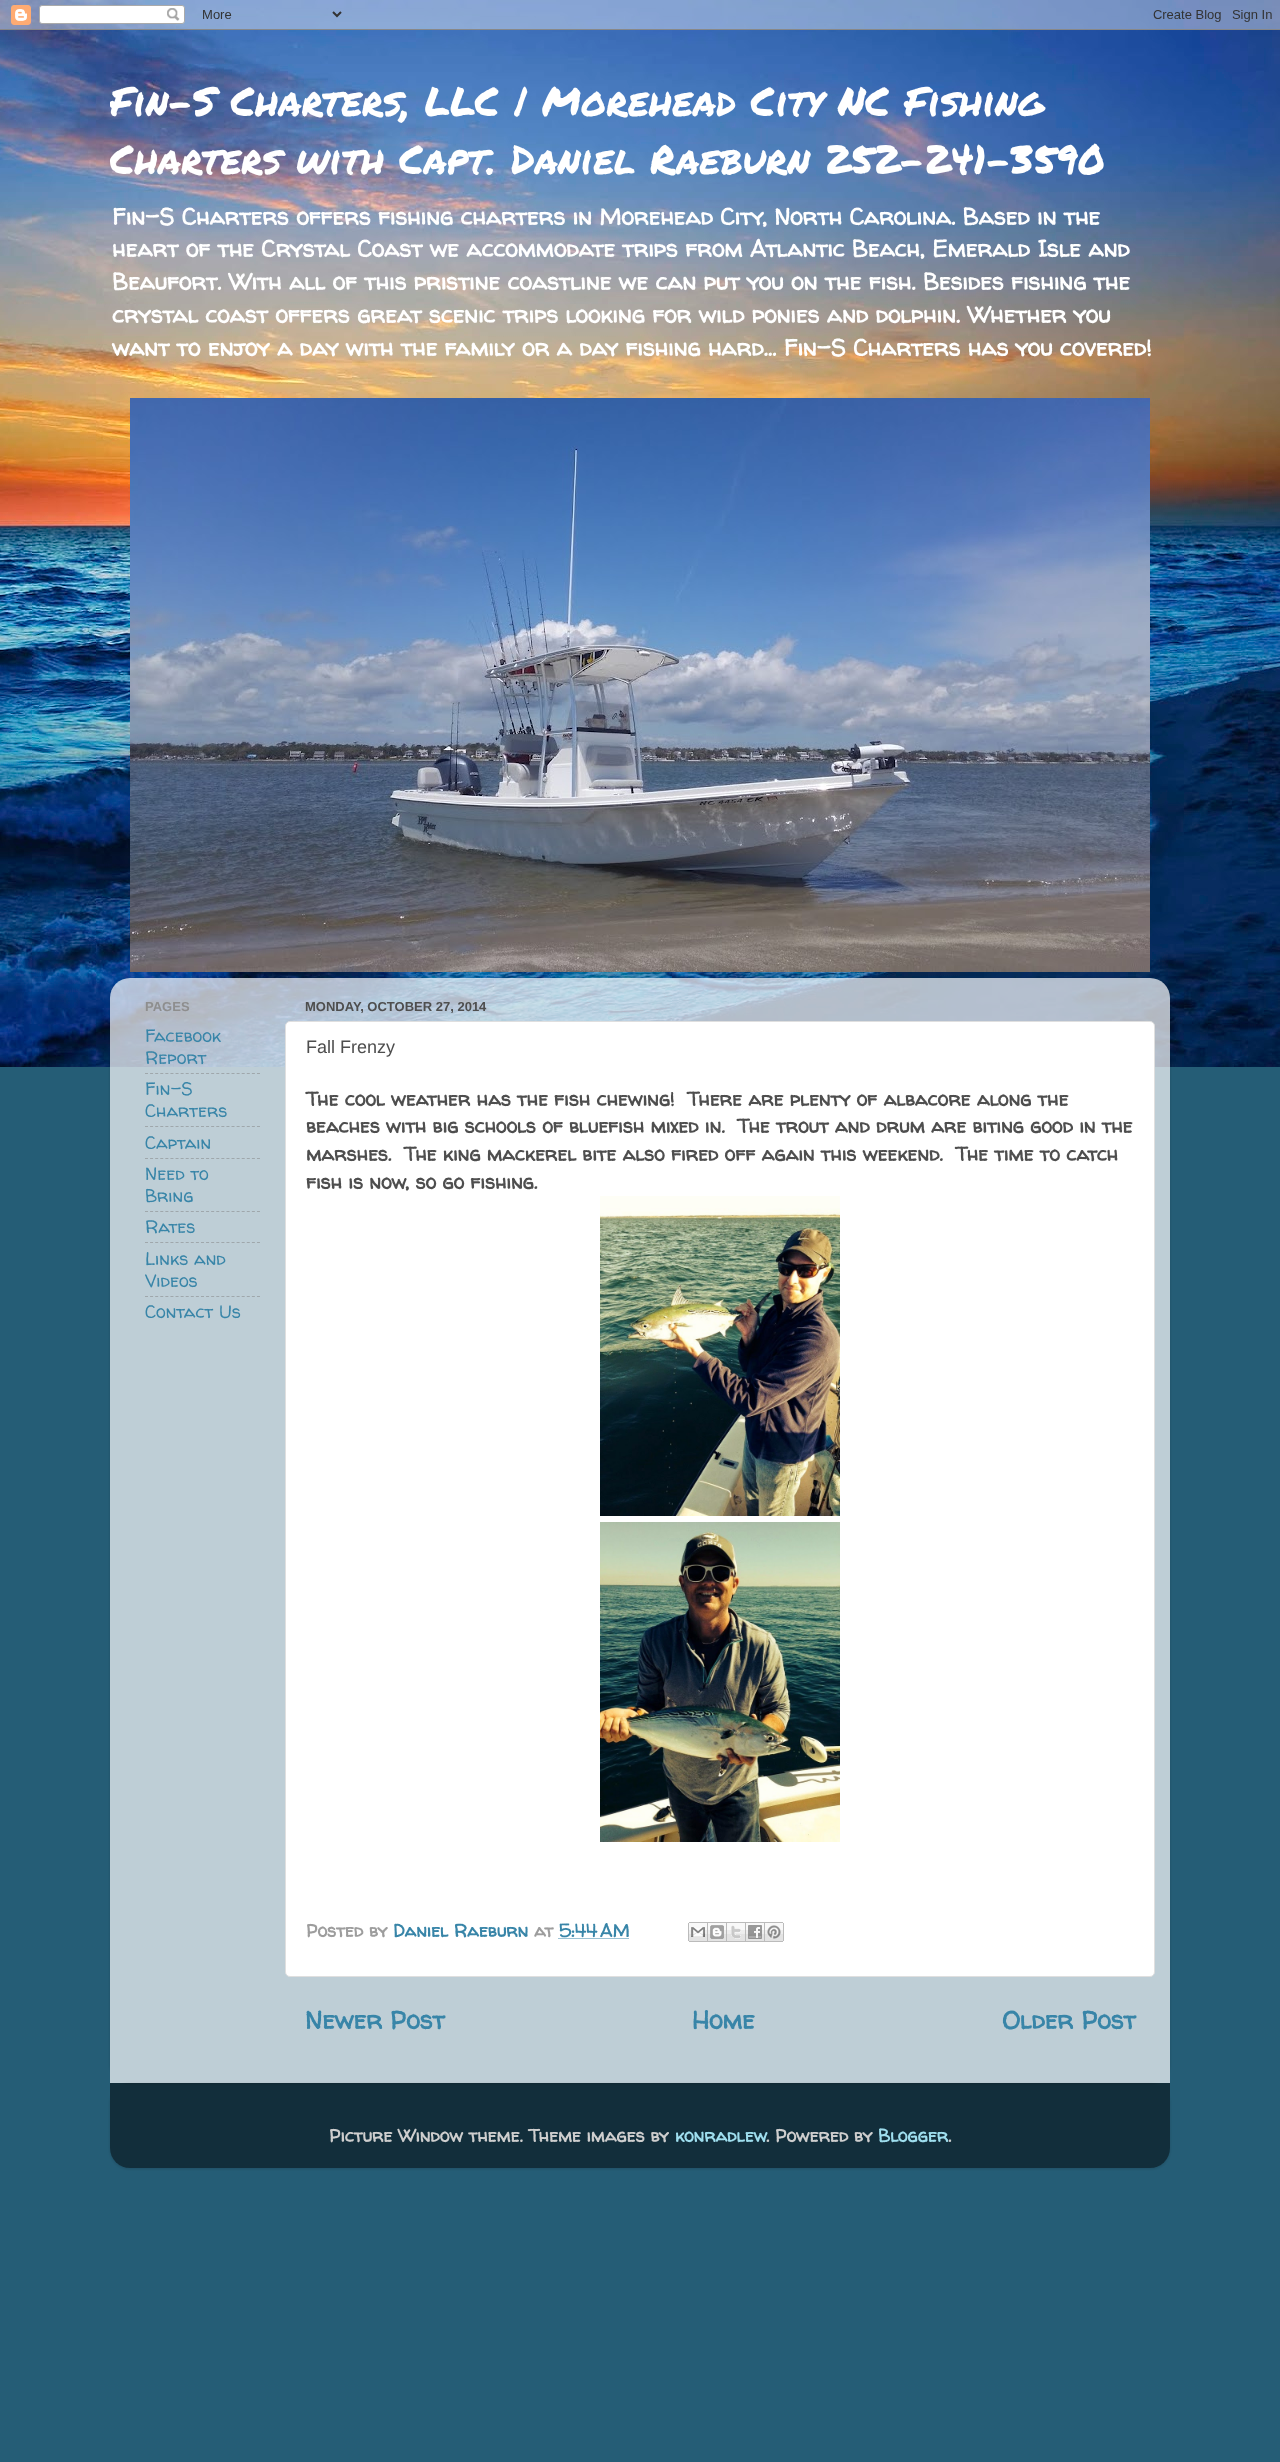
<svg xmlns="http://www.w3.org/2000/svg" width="1280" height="2462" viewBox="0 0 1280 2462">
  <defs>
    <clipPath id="clip1"><rect x="110" y="50" width="1060" height="339"/></clipPath>
    <clipPath id="clip2"><path d="M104 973H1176V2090H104ZM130 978H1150C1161 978 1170 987 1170 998V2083H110V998C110 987 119 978 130 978Z" clip-rule="evenodd"/></clipPath>
    <filter id="blur1" x="-50%" y="-200%" width="200%" height="500%"><feGaussianBlur stdDeviation="1.5"/></filter>
    <clipPath id="clip3"><path d="M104 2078H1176V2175H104ZM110 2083H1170V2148C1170 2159 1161 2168 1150 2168H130C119 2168 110 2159 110 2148Z" clip-rule="evenodd"/></clipPath>
  </defs>
  <rect width="100%" height="100%" fill="#255d76"/>
  <image x="0" y="0" width="1280" height="1067" href="img1.png"/>
  <image x="0" y="0" width="1280" height="30" href="img2.png"/>
  <g clip-path="url(#clip1)">
    <text x="110" y="116" font-family="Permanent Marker" font-size="40" fill="#ffffff">Fin-S Charters, LLC | Morehead City NC Fishing</text>
  </g>
  <text x="110" y="174" font-family="Permanent Marker" font-size="40" fill="#ffffff">Charters with Capt. Daniel Raeburn 252-241-3590</text>
  <text x="112" y="225" font-family="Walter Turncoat" font-size="23.4" font-weight="bold" fill="#ffffff">Fin-S Charters offers fishing charters in Morehead City, North Carolina. Based in the</text>
  <text x="112" y="257" font-family="Walter Turncoat" font-size="23.4" font-weight="bold" fill="#ffffff">heart of the Crystal Coast we accommodate trips from Atlantic Beach, Emerald Isle and</text>
  <text x="112" y="290" font-family="Walter Turncoat" font-size="23.4" font-weight="bold" fill="#ffffff">Beaufort. With all of this pristine coastline we can put you on the fish. Besides fishing the</text>
  <text x="112" y="323" font-family="Walter Turncoat" font-size="23.4" font-weight="bold" fill="#ffffff">crystal coast offers great scenic trips looking for wild ponies and dolphin. Whether you</text>
  <text x="112" y="356" font-family="Walter Turncoat" font-size="23.4" font-weight="bold" fill="#ffffff">want to enjoy a day with the family or a day fishing hard... Fin-S Charters has you covered!</text>
  <image x="130" y="398" width="1020" height="574" href="img3.png"/>
  <g clip-path="url(#clip2)">
    <rect x="110" y="979" width="1060" height="1105" rx="20" fill="#000000" fill-opacity="0.15" filter="url(#blur1)"/>
  </g>
  <image x="110" y="978" width="1060" height="1105" href="img4.png"/>
  <text x="145" y="1011" font-family="Liberation Sans" font-size="13" font-weight="bold" fill="#8e8e8e">PAGES</text>
  <text x="145" y="1042" font-family="Walter Turncoat" font-size="18" fill="#3885a8">Facebook</text>
  <text x="145" y="1064" font-family="Walter Turncoat" font-size="18" fill="#3885a8">Report</text>
  <path d="M145 1073.5H260" fill="none" stroke="#9fa7ab" stroke-dasharray="3 2.09"/>
  <text x="145" y="1095" font-family="Walter Turncoat" font-size="18" fill="#3885a8">Fin-S</text>
  <text x="145" y="1117" font-family="Walter Turncoat" font-size="18" fill="#3885a8">Charters</text>
  <path d="M145 1126.5H260" fill="none" stroke="#9fa7ab" stroke-dasharray="3 2.09"/>
  <text x="145" y="1149" font-family="Walter Turncoat" font-size="18" fill="#3885a8">Captain</text>
  <path d="M145 1158.5H260" fill="none" stroke="#9fa7ab" stroke-dasharray="3 2.09"/>
  <text x="145" y="1180" font-family="Walter Turncoat" font-size="18" fill="#3885a8">Need to</text>
  <text x="145" y="1202" font-family="Walter Turncoat" font-size="18" fill="#3885a8">Bring</text>
  <path d="M145 1211.5H260" fill="none" stroke="#9fa7ab" stroke-dasharray="3 2.09"/>
  <text x="145" y="1233" font-family="Walter Turncoat" font-size="18" fill="#3885a8">Rates</text>
  <path d="M145 1242.5H260" fill="none" stroke="#9fa7ab" stroke-dasharray="3 2.09"/>
  <text x="145" y="1265" font-family="Walter Turncoat" font-size="18" fill="#3885a8">Links and</text>
  <text x="145" y="1287" font-family="Walter Turncoat" font-size="18" fill="#3885a8">Videos</text>
  <path d="M145 1296.5H260" fill="none" stroke="#9fa7ab" stroke-dasharray="3 2.09"/>
  <text x="145" y="1318" font-family="Walter Turncoat" font-size="18" fill="#3885a8">Contact Us</text>
  <text x="305" y="1011" font-family="Liberation Sans" font-size="13" font-weight="bold" fill="#4e4e4e">MONDAY, OCTOBER 27, 2014</text>
  <rect x="285.5" y="1021.5" width="869" height="955" rx="4.5" fill="#ffffff" stroke="#dfdfdf"/>
  <text x="306" y="1053" font-family="Liberation Sans" font-size="18" fill="#4e4e4e">Fall Frenzy</text>
  <text x="306" y="1106" font-family="Walter Turncoat" font-size="19.8" font-weight="bold" fill="#4e4e4e" xml:space="preserve">The cool weather has the fish chewing!  There are plenty of albacore along the</text>
  <text x="306" y="1133" font-family="Walter Turncoat" font-size="19.8" font-weight="bold" fill="#4e4e4e" xml:space="preserve">beaches with big schools of bluefish mixed in.  The trout and drum are biting good in the</text>
  <text x="306" y="1161" font-family="Walter Turncoat" font-size="19.8" font-weight="bold" fill="#4e4e4e" xml:space="preserve">marshes.  The king mackerel bite also fired off again this weekend.  The time to catch</text>
  <text x="306" y="1189" font-family="Walter Turncoat" font-size="19.8" font-weight="bold" fill="#4e4e4e">fish is now, so go fishing.</text>
  <image x="600" y="1196" width="240" height="320" href="img5.png"/>
  <image x="600" y="1522" width="240" height="320" href="img6.png"/>
  <text x="306" y="1937" font-family="Walter Turncoat" font-size="18" font-weight="bold" fill="#9d9d9d">Posted by</text>
  <text x="393" y="1937" font-family="Walter Turncoat" font-size="18" font-weight="bold" fill="#3885a8">Daniel Raeburn</text>
  <text x="534" y="1937" font-family="Walter Turncoat" font-size="18" font-weight="bold" fill="#9d9d9d">at</text>
  <path d="M558.5 1938.5H629" fill="none" stroke="#3885a8" stroke-dasharray="1 1"/>
  <text x="559" y="1937" font-family="Walter Turncoat" font-size="18" font-weight="bold" fill="#3885a8">5:44 AM</text>
  <image x="688" y="1922" width="20" height="20" href="img7.png"/>
  <image x="708" y="1922" width="19" height="20" href="img8.png"/>
  <image x="727" y="1922" width="19" height="20" href="img9.png"/>
  <image x="746" y="1922" width="19" height="20" href="img10.png"/>
  <image x="765" y="1922" width="19" height="20" href="img11.png"/>
  <text x="305" y="2029" font-family="Walter Turncoat" font-size="25.25" font-weight="bold" fill="#3885a8">Newer Post</text>
  <text x="692" y="2029" font-family="Walter Turncoat" font-size="25.25" font-weight="bold" fill="#3885a8">Home</text>
  <text x="1002" y="2029" font-family="Walter Turncoat" font-size="25.25" font-weight="bold" fill="#3885a8">Older Post</text>
  <g clip-path="url(#clip3)">
    <rect x="110" y="2084" width="1060" height="85" rx="20" fill="#000000" fill-opacity="0.15" filter="url(#blur1)"/>
  </g>
  <image x="110" y="2083" width="1060" height="85" href="img12.png"/>
  <text x="329" y="2142" font-family="Walter Turncoat" font-size="18" font-weight="bold" fill="#cecece">Picture Window theme. Theme images by</text>
  <text x="675" y="2142" font-family="Walter Turncoat" font-size="18" font-weight="bold" fill="#9edeee">konradlew</text>
  <text x="766" y="2142" font-family="Walter Turncoat" font-size="18" font-weight="bold" fill="#cecece">. Powered by</text>
  <text x="878" y="2142" font-family="Walter Turncoat" font-size="18" font-weight="bold" fill="#9edeee">Blogger</text>
  <text x="948" y="2142" font-family="Walter Turncoat" font-size="18" font-weight="bold" fill="#cecece">.</text>
</svg>
